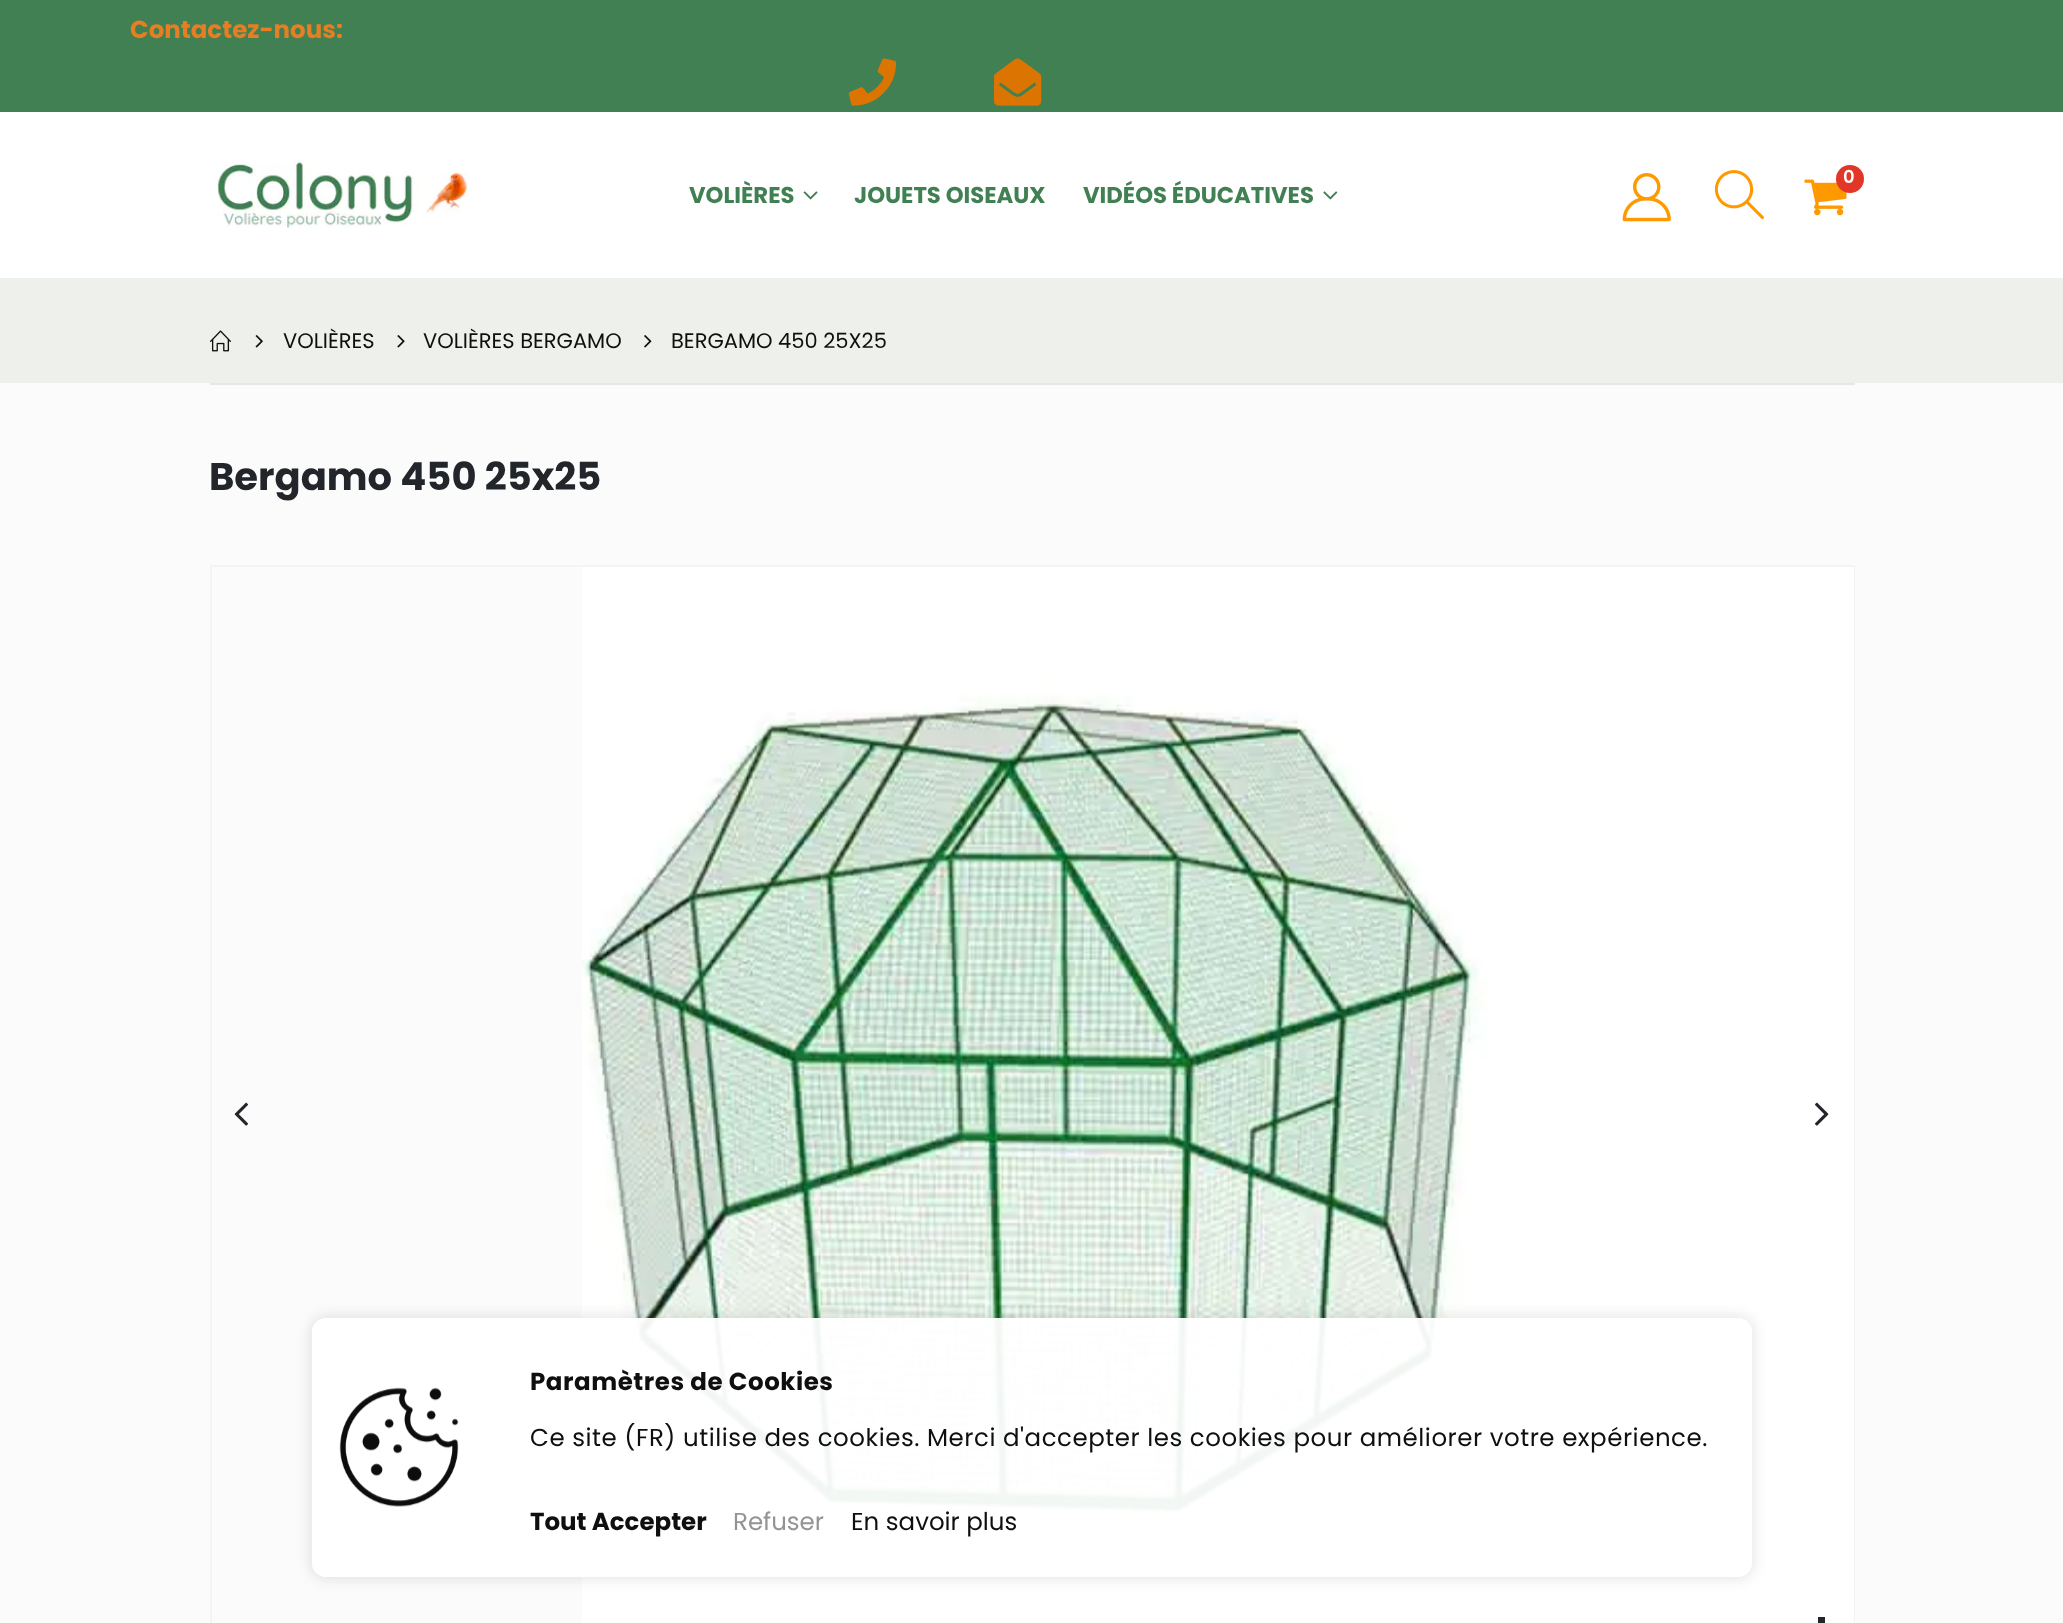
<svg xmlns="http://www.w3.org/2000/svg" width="2063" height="1623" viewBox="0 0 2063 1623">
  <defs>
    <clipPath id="clip1"><path d="M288 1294H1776V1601H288ZM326 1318H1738C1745.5 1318 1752 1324.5 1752 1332V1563C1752 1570.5 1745.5 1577 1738 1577H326C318.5 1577 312 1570.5 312 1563V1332C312 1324.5 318.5 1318 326 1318Z" clip-rule="evenodd"/></clipPath>
    <filter id="blur1" x="-50%" y="-200%" width="200%" height="500%"><feGaussianBlur stdDeviation="7"/></filter>
  </defs>
  <rect width="100%" height="100%" fill="#fbfbfb"/>
  <rect x="0" y="0" width="2063" height="112" fill="#408053"/>
  <text x="130" y="38" font-family="Poppins" font-size="24.5" font-weight="bold" fill="#e67e23">Contactez-nous:</text>
  <image x="848" y="58" width="49" height="48" href="img1.png"/>
  <image x="994" y="58" width="48" height="48" href="img2.png"/>
  <rect x="0" y="112" width="2063" height="166" fill="#ffffff"/>
  <image x="1622" y="173" width="49" height="49" href="img3.png"/>
  <image x="1714" y="170" width="50" height="50" href="img4.png"/>
  <image x="1804" y="179" width="43" height="37" href="img5.png"/>
  <circle cx="1850" cy="179" r="14" fill="#e23626"/>
  <text x="1843" y="183" font-family="Poppins" font-size="18" font-weight="600" fill="#ffffff">0</text>
  <image x="217" y="162" width="252" height="66" href="img6.png"/>
  <text x="689" y="203" font-family="Poppins" font-size="22.75" font-weight="bold" fill="#408053">VOLIÈRES</text>
  <image x="803" y="191" width="15" height="9" href="img7.png"/>
  <text x="854" y="203" font-family="Poppins" font-size="22.75" font-weight="bold" fill="#408053">JOUETS OISEAUX</text>
  <text x="1083" y="203" font-family="Poppins" font-size="22.75" font-weight="bold" fill="#408053">VIDÉOS ÉDUCATIVES</text>
  <image x="1323" y="191" width="15" height="9" href="img8.png"/>
  <rect x="0" y="278" width="2063" height="105" fill="#edf0eb"/>
  <image x="210" y="330" width="21" height="22" href="img9.png"/>
  <image x="255" y="335" width="8" height="13" href="img10.png"/>
  <text x="283" y="348" font-family="Poppins" font-size="21" fill="#0f0f0f">VOLIÈRES</text>
  <image x="397" y="335" width="8" height="13" href="img11.png"/>
  <text x="423" y="348" font-family="Poppins" font-size="21" fill="#0f0f0f">VOLIÈRES BERGAMO</text>
  <image x="644" y="335" width="8" height="13" href="img12.png"/>
  <text x="671" y="348" font-family="Poppins" font-size="21" fill="#0f0f0f">BERGAMO 450 25X25</text>
  <rect x="210" y="383" width="1645" height="2" fill="#e7e7e7"/>
  <text x="209" y="490" font-family="Poppins" font-size="38.5" font-weight="bold" fill="#222529">Bergamo 450 25x25</text>
  <rect x="211" y="566" width="1643" height="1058" fill="none" stroke="#f4f4f4" stroke-width="2"/>
  <image x="234" y="1102" width="15" height="24" href="img13.png"/>
  <image x="582" y="567" width="1272" height="1056" href="img14.png"/>
  <image x="1815" y="1102" width="14" height="24" href="img15.png"/>
  <rect x="1818" y="1617" width="7" height="6" fill="#222529"/>
  <g clip-path="url(#clip1)">
    <rect x="310" y="1316" width="1444" height="263" rx="16" fill="#000000" fill-opacity="0.1" filter="url(#blur1)"/>
  </g>
  <rect x="312" y="1318" width="1440" height="259" rx="14" fill="#ffffff" fill-opacity="0.95"/>
  <image x="339" y="1387" width="120" height="120" href="img16.png"/>
  <text x="530" y="1390" font-family="Poppins" font-size="24.5" font-weight="bold" letter-spacing="0.53" fill="#0f0f0f">Paramètres de Cookies</text>
  <text x="530" y="1446" font-family="Poppins" font-size="24.5" letter-spacing="0.53" fill="#0f0f0f">Ce site (FR) utilise des cookies. Merci d'accepter les cookies pour améliorer votre expérience.</text>
  <text x="530" y="1530" font-family="Poppins" font-size="24.5" font-weight="bold" fill="#0f0f0f">Tout Accepter</text>
  <text x="733" y="1530" font-family="Poppins" font-size="24.5" fill="#949494">Refuser</text>
  <text x="851" y="1530" font-family="Poppins" font-size="24.5" fill="#0f0f0f">En savoir plus</text>
</svg>
